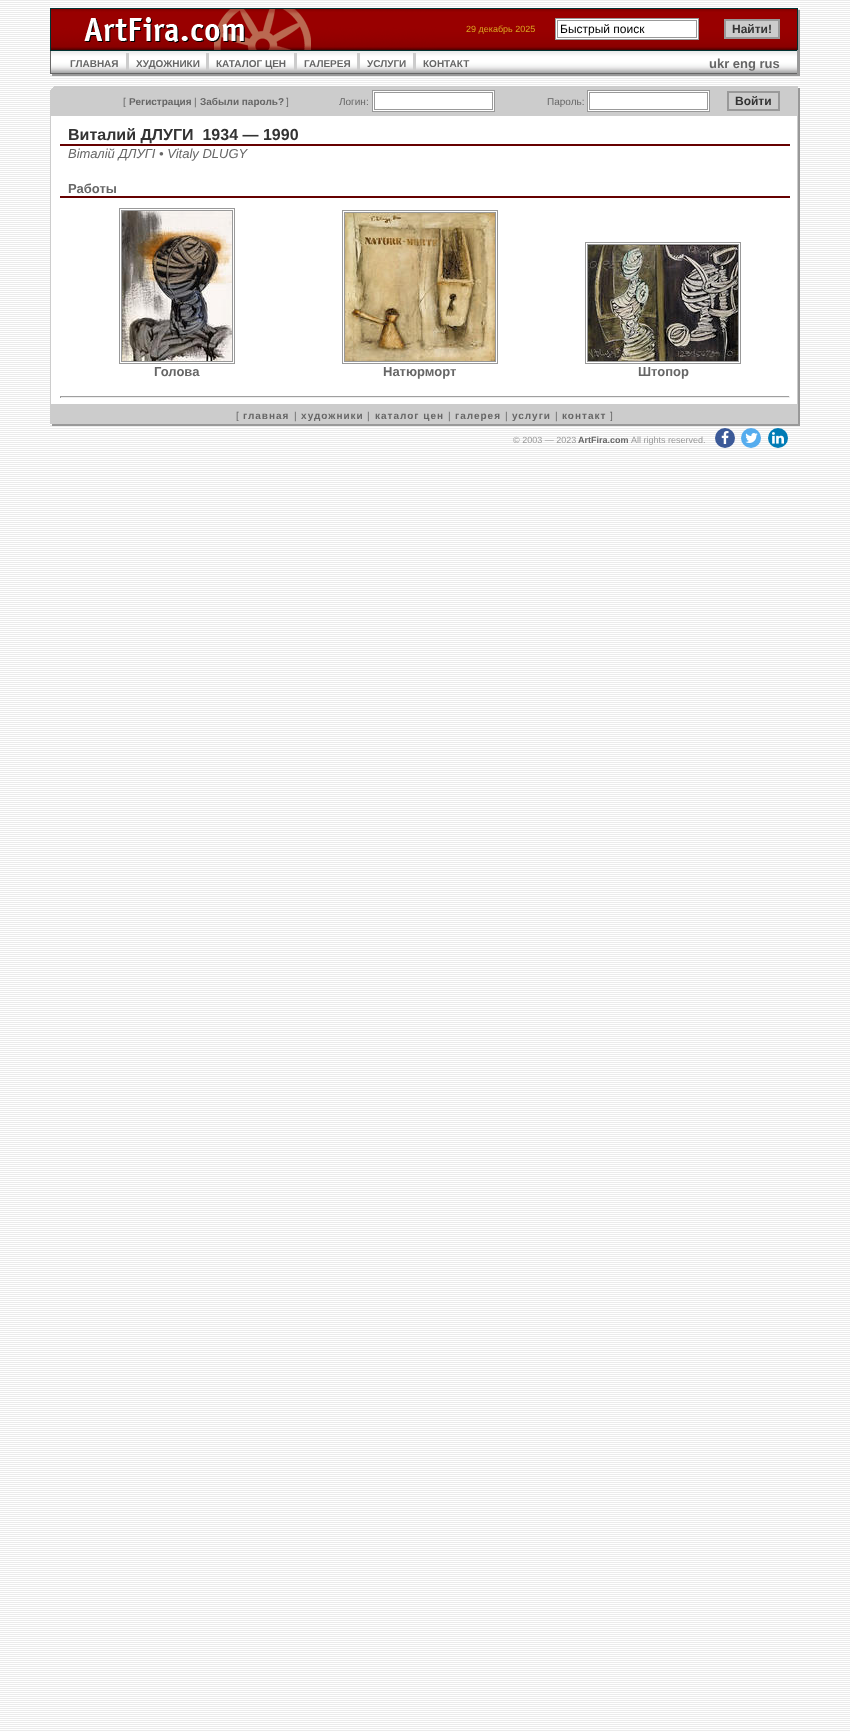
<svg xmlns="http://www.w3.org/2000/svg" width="850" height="1732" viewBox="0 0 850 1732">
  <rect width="100%" height="100%" fill="#ffffff"/>
  <image x="0" y="0" width="850" height="1731" href="img1.png"/>
  <image x="50" y="8" width="387" height="42" href="img2.png"/>
  <image x="437" y="8" width="343" height="42" href="img3.png"/>
  <text x="466" y="32" font-family="Liberation Sans" font-size="9" fill="#daa520">29 декабрь 2025</text>
  <rect x="555.5" y="18.5" width="143" height="21" fill="#ffffff" stroke="#999999"/>
  <rect x="557.5" y="20.5" width="139" height="17" fill="none" stroke="#999999"/>
  <text x="560" y="33" font-family="Liberation Sans" font-size="12" fill="#000000">Быстрый поиск</text>
  <rect x="725" y="20" width="54" height="18" fill="#cccccc" stroke="#999999" stroke-width="2"/>
  <text x="732" y="33" font-family="Liberation Sans" font-size="12" font-weight="bold" fill="#333333">Найти!</text>
  <image x="780" y="8" width="20" height="42" href="img4.png"/>
  <image x="50" y="50" width="750" height="26" href="img5.png"/>
  <image x="50" y="51" width="2" height="25" href="img6.png"/>
  <text x="70" y="67" font-family="Liberation Sans" font-size="10" font-weight="bold" fill="#666666">ГЛАВНАЯ</text>
  <rect x="126" y="53" width="3" height="17" fill="#cccccc"/>
  <text x="136" y="67" font-family="Liberation Sans" font-size="10" font-weight="bold" fill="#666666">ХУДОЖНИКИ</text>
  <rect x="206" y="53" width="3" height="17" fill="#cccccc"/>
  <text x="216" y="67" font-family="Liberation Sans" font-size="10" font-weight="bold" fill="#666666">КАТАЛОГ ЦЕН</text>
  <rect x="294" y="53" width="3" height="17" fill="#cccccc"/>
  <text x="304" y="67" font-family="Liberation Sans" font-size="10" font-weight="bold" fill="#666666">ГАЛЕРЕЯ</text>
  <rect x="357" y="53" width="3" height="17" fill="#cccccc"/>
  <text x="367" y="67" font-family="Liberation Sans" font-size="10" font-weight="bold" fill="#666666">УСЛУГИ</text>
  <rect x="413" y="53" width="3" height="17" fill="#cccccc"/>
  <text x="423" y="67" font-family="Liberation Sans" font-size="10" font-weight="bold" fill="#666666">КОНТАКТ</text>
  <text x="709" y="68" font-family="Liberation Sans" font-size="13" font-weight="bold" fill="#666666">ukr eng rus</text>
  <rect x="797" y="50" width="3" height="24" fill="#999999"/>
  <image x="50" y="86" width="20" height="30" href="img7.png"/>
  <rect x="70" y="86" width="710" height="30" fill="#cccccc"/>
  <text x="123" y="105" font-family="Liberation Sans" font-size="10" fill="#666666">[</text>
  <text x="129" y="105" font-family="Liberation Sans" font-size="10" font-weight="bold" fill="#666666">Регистрация</text>
  <text x="194" y="105" font-family="Liberation Sans" font-size="10" fill="#666666">|</text>
  <text x="200" y="105" font-family="Liberation Sans" font-size="10" font-weight="bold" fill="#666666">Забыли пароль?</text>
  <text x="286" y="105" font-family="Liberation Sans" font-size="10" fill="#666666">]</text>
  <text x="339" y="105" font-family="Liberation Sans" font-size="10" fill="#666666">Логин:</text>
  <rect x="372.5" y="90.5" width="122" height="21" fill="#ffffff" stroke="#999999"/>
  <rect x="374.5" y="92.5" width="118" height="17" fill="none" stroke="#999999"/>
  <text x="547" y="105" font-family="Liberation Sans" font-size="10" fill="#666666">Пароль:</text>
  <rect x="587.5" y="90.5" width="122" height="21" fill="#ffffff" stroke="#999999"/>
  <rect x="589.5" y="92.5" width="118" height="17" fill="none" stroke="#999999"/>
  <rect x="728" y="92" width="51" height="18" fill="none" stroke="#999999" stroke-width="2"/>
  <text x="735" y="105" font-family="Liberation Sans" font-size="12" font-weight="bold" fill="#333333">Войти</text>
  <image x="780" y="86" width="20" height="30" href="img8.png"/>
  <image x="50" y="116" width="750" height="288" href="img9.png"/>
  <rect x="60" y="144" width="730" height="2" fill="#660000"/>
  <text x="68" y="140" font-family="Liberation Sans" font-size="16" font-weight="bold" fill="#333333" xml:space="preserve">Виталий ДЛУГИ  1934 — 1990</text>
  <text x="68" y="158" font-family="Liberation Sans" font-size="13" font-style="italic" fill="#666666">Віталій ДЛУГІ • Vitaly DLUGY</text>
  <rect x="60" y="196" width="730" height="2" fill="#660000"/>
  <text x="68" y="193" font-family="Liberation Sans" font-size="13" font-weight="bold" fill="#666666">Работы</text>
  <rect x="119.5" y="208.5" width="115" height="155" fill="none" stroke="#999999"/>
  <rect x="121.5" y="210.5" width="111" height="151" fill="none" stroke="#999999"/>
  <image x="122" y="211" width="110" height="150" href="img10.png"/>
  <text x="154" y="376" font-family="Liberation Sans" font-size="13" font-weight="bold" fill="#666666">Голова</text>
  <rect x="342.5" y="210.5" width="155" height="153" fill="none" stroke="#999999"/>
  <rect x="344.5" y="212.5" width="151" height="149" fill="none" stroke="#999999"/>
  <image x="345" y="213" width="150" height="148" href="img11.png"/>
  <text x="383" y="376" font-family="Liberation Sans" font-size="13" font-weight="bold" fill="#666666">Натюрморт</text>
  <rect x="585.5" y="242.5" width="155" height="121" fill="none" stroke="#999999"/>
  <rect x="587.5" y="244.5" width="151" height="117" fill="none" stroke="#999999"/>
  <image x="588" y="245" width="150" height="116" href="img12.png"/>
  <text x="638" y="376" font-family="Liberation Sans" font-size="13" font-weight="bold" fill="#666666">Штопор</text>
  <rect x="60" y="396" width="730" height="1" fill="#9f9f9f"/>
  <rect x="789" y="396" width="1" height="2" fill="#eeeeee"/>
  <rect x="60" y="397" width="730" height="1" fill="#eeeeee"/>
  <rect x="60" y="396" width="1" height="2" fill="#9f9f9f"/>
  <image x="50" y="404" width="20" height="22" href="img13.png"/>
  <image x="70" y="404" width="710" height="22" href="img14.png"/>
  <text x="236" y="419" font-family="Liberation Sans" font-size="10" letter-spacing="1" fill="#666666">[</text>
  <text x="243" y="419" font-family="Liberation Sans" font-size="10" font-weight="bold" letter-spacing="1" fill="#666666">главная</text>
  <text x="294" y="419" font-family="Liberation Sans" font-size="10" letter-spacing="1" fill="#666666">|</text>
  <text x="301" y="419" font-family="Liberation Sans" font-size="10" font-weight="bold" letter-spacing="1" fill="#666666">художники</text>
  <text x="367" y="419" font-family="Liberation Sans" font-size="10" letter-spacing="1" fill="#666666">|</text>
  <text x="375" y="419" font-family="Liberation Sans" font-size="10" font-weight="bold" letter-spacing="1" fill="#666666">каталог цен</text>
  <text x="448" y="419" font-family="Liberation Sans" font-size="10" letter-spacing="1" fill="#666666">|</text>
  <text x="455" y="419" font-family="Liberation Sans" font-size="10" font-weight="bold" letter-spacing="1" fill="#666666">галерея</text>
  <text x="505" y="419" font-family="Liberation Sans" font-size="10" letter-spacing="1" fill="#666666">|</text>
  <text x="512" y="419" font-family="Liberation Sans" font-size="10" font-weight="bold" letter-spacing="1" fill="#666666">услуги</text>
  <text x="555" y="419" font-family="Liberation Sans" font-size="10" letter-spacing="1" fill="#666666">|</text>
  <text x="562" y="419" font-family="Liberation Sans" font-size="10" font-weight="bold" letter-spacing="1" fill="#666666">контакт</text>
  <text x="610" y="419" font-family="Liberation Sans" font-size="10" letter-spacing="1" fill="#666666">]</text>
  <image x="780" y="404" width="20" height="22" href="img15.png"/>
  <text x="513" y="443" font-family="Liberation Sans" font-size="9" fill="#999999">© 2003 — 2023</text>
  <text x="578" y="443" font-family="Liberation Sans" font-size="9" font-weight="bold" fill="#666666">ArtFira.com</text>
  <text x="631" y="443" font-family="Liberation Sans" font-size="9" fill="#999999">All rights reserved.</text>
  <circle cx="725" cy="438" r="10" fill="#3b5998"/>
  <image x="721" y="431" width="8" height="13" href="img16.png"/>
  <circle cx="751" cy="438" r="10" fill="#55acee"/>
  <image x="745" y="433" width="13" height="10" href="img17.png"/>
  <circle cx="778" cy="438" r="10" fill="#007bb5"/>
  <image x="772" y="432" width="12" height="12" href="img18.png"/>
</svg>
